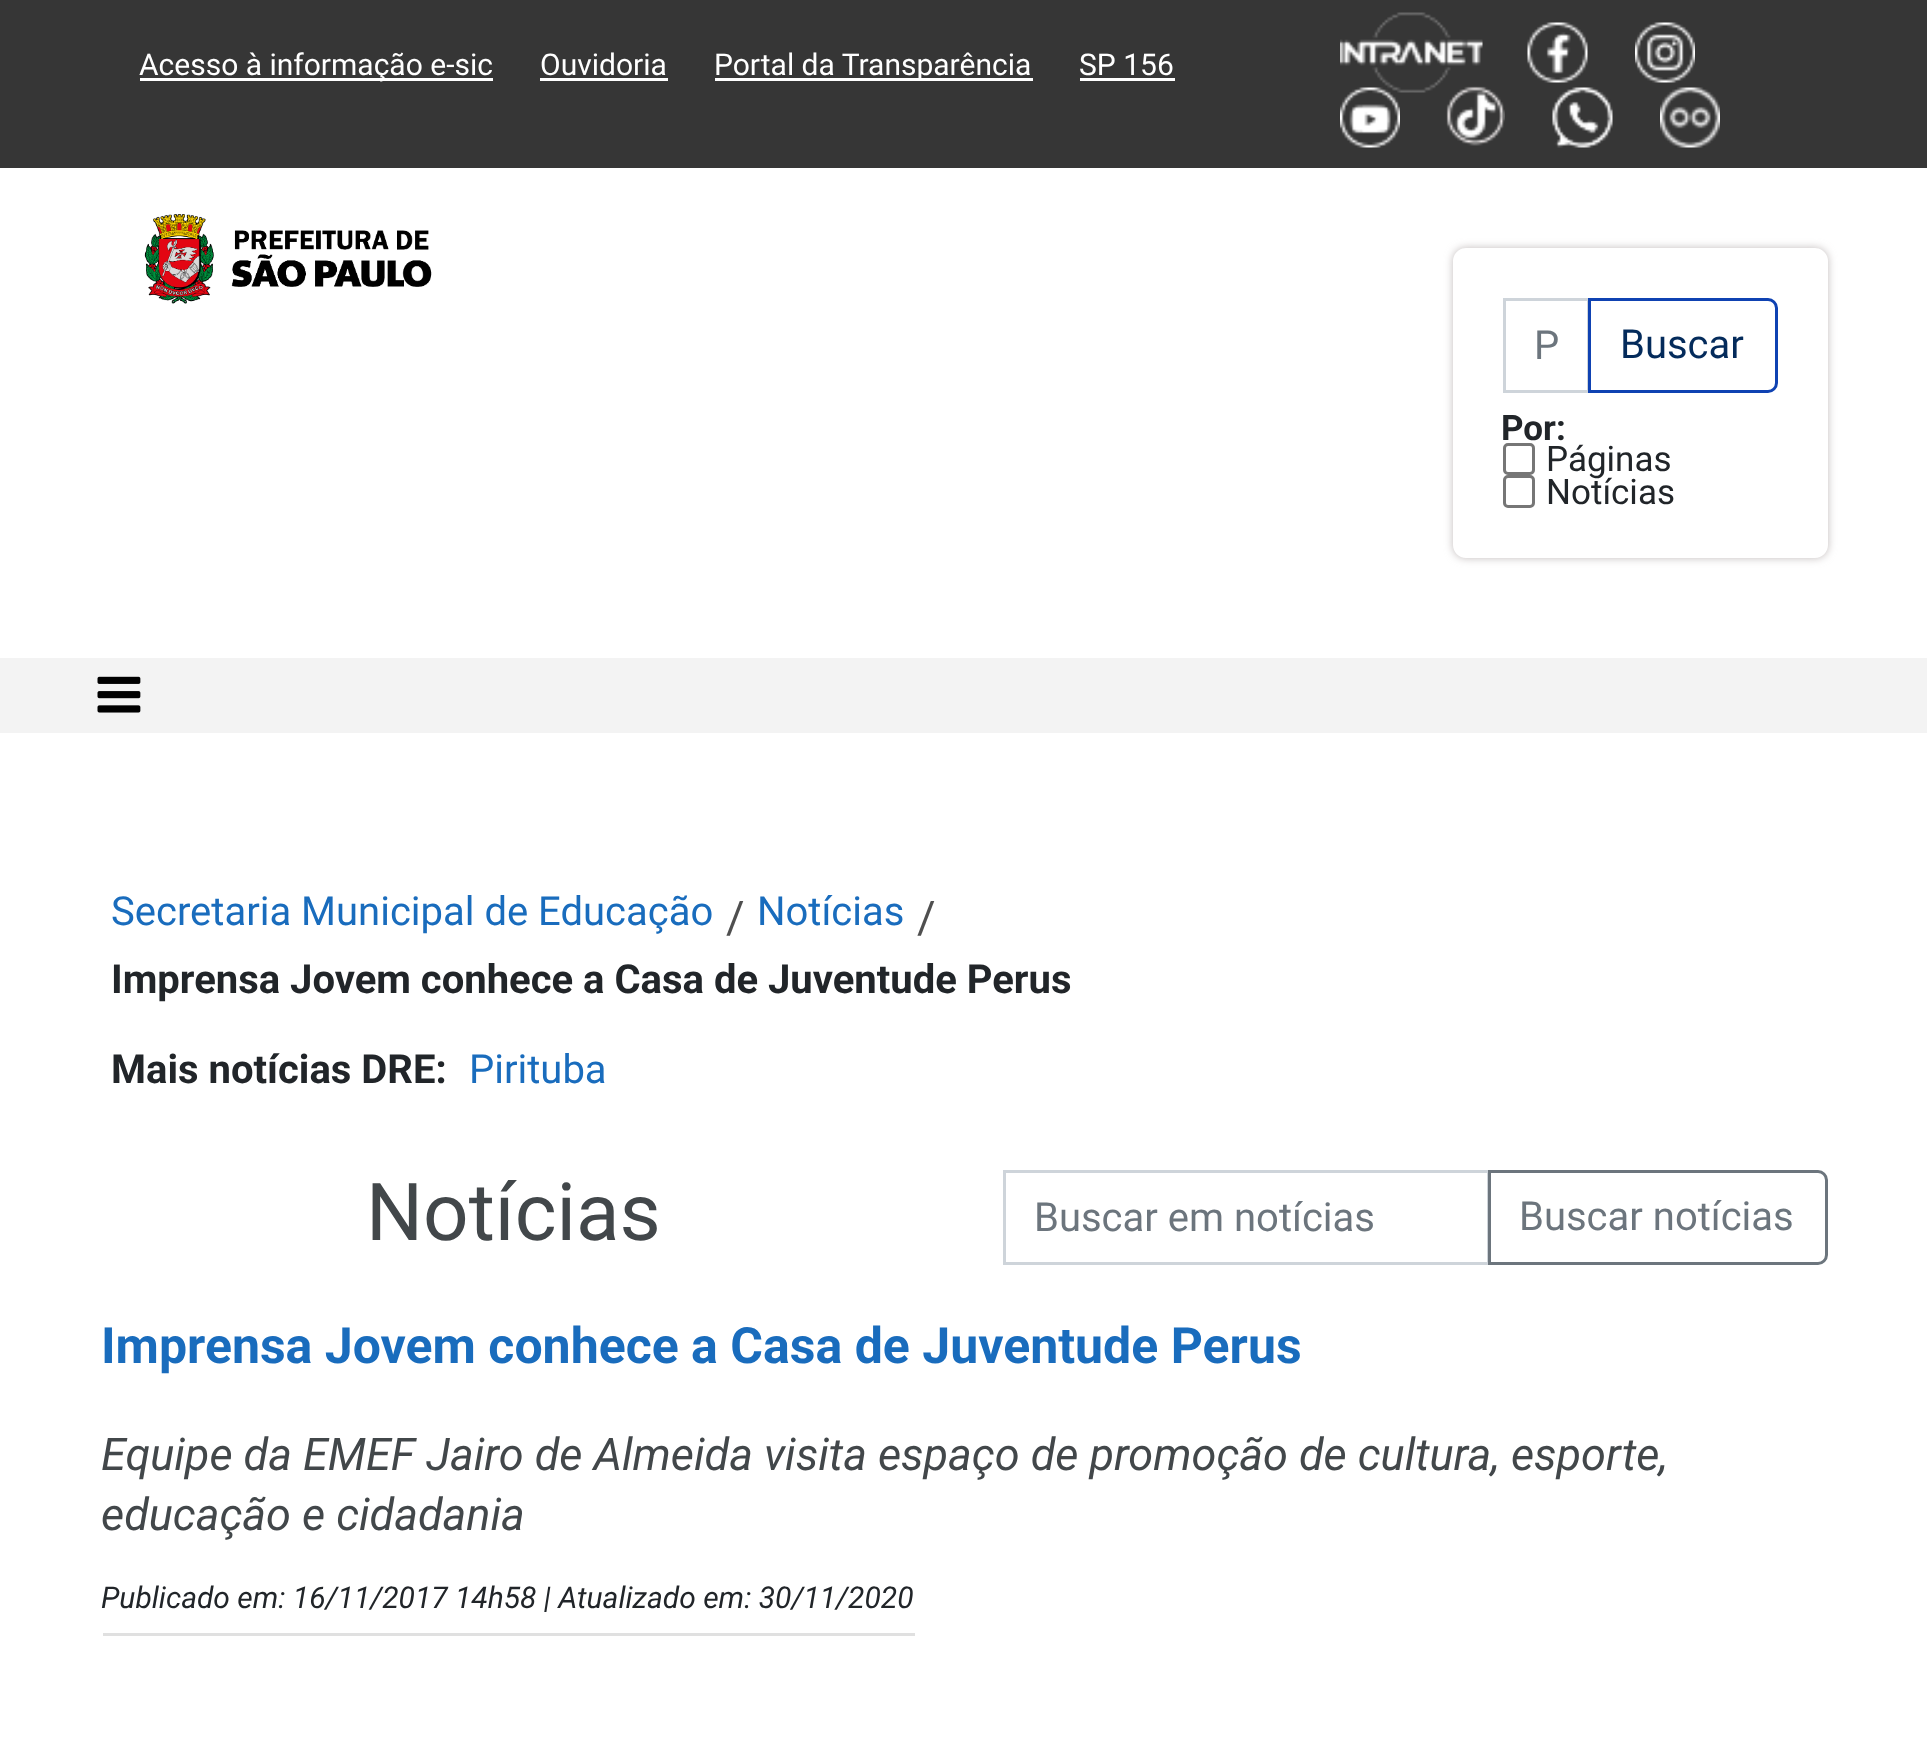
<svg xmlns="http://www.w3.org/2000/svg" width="1927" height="1745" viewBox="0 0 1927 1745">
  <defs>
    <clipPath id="clip1"><path d="M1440 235H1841V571H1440ZM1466 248H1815C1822 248 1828 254 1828 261V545C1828 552 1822 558 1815 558H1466C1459 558 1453 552 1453 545V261C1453 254 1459 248 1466 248Z" clip-rule="evenodd"/></clipPath>
    <filter id="blur1" x="-50%" y="-200%" width="200%" height="500%"><feGaussianBlur stdDeviation="4"/></filter>
  </defs>
  <rect width="100%" height="100%" fill="#ffffff"/>
  <rect x="0" y="0" width="1927" height="168" fill="#363636"/>
  <rect x="140" y="78" width="353" height="3" fill="#ffffff"/>
  <text x="139" y="75" font-family="Roboto" font-size="30" fill="#ffffff">Acesso à informação e-sic</text>
  <text x="540" y="75" font-family="Roboto" font-size="30" fill="#ffffff">Ouvidoria</text>
  <rect x="540" y="78" width="128" height="3" fill="#ffffff"/>
  <rect x="715" y="78" width="318" height="3" fill="#ffffff"/>
  <text x="714" y="75" font-family="Roboto" font-size="30" fill="#ffffff">Portal da Transparência</text>
  <text x="1079" y="75" font-family="Roboto" font-size="30" fill="#ffffff">SP 156</text>
  <rect x="1080" y="78" width="95" height="3" fill="#ffffff"/>
  <image x="1340" y="12" width="143" height="81" href="img1.png"/>
  <image x="1527" y="22" width="61" height="61" href="img2.png"/>
  <image x="1635" y="22" width="60" height="61" href="img3.png"/>
  <image x="1340" y="87" width="60" height="61" href="img4.png"/>
  <image x="1446" y="86" width="59" height="60" href="img5.png"/>
  <image x="1552" y="87" width="61" height="61" href="img6.png"/>
  <image x="1660" y="87" width="60" height="61" href="img7.png"/>
  <image x="144" y="214" width="288" height="90" href="img8.png"/>
  <g clip-path="url(#clip1)">
    <rect x="1453" y="248" width="375" height="310" rx="13" fill="#c1bbbb" filter="url(#blur1)"/>
  </g>
  <rect x="1504.5" y="299.5" width="84" height="92" fill="none" stroke="#ced4da" stroke-width="3"/>
  <text x="1534" y="359" font-family="Roboto" font-size="40" fill="#6c757d">P</text>
  <path d="M1589.5 299.5H1768C1772.5 299.5 1776.5 303.5 1776.5 308V383C1776.5 387.5 1772.5 391.5 1768 391.5H1589.5Z" fill="none" stroke="#0f42b2" stroke-width="3"/>
  <text x="1620" y="358" font-family="Roboto" font-size="40" fill="#042b5b">Buscar</text>
  <text x="1501" y="440" font-family="Roboto" font-size="35" font-weight="bold" fill="#212529">Por:</text>
  <rect x="1504.5" y="444.5" width="29" height="29" rx="3.5" fill="none" stroke="#767676" stroke-width="3"/>
  <text x="1546" y="471" font-family="Roboto" font-size="35" fill="#212529">Páginas</text>
  <rect x="1504.5" y="476.5" width="29" height="30" rx="3.5" fill="none" stroke="#767676" stroke-width="3"/>
  <text x="1546" y="504" font-family="Roboto" font-size="35" fill="#212529">Notícias</text>
  <rect x="0" y="658" width="1927" height="75" fill="#f3f3f3"/>
  <image x="97" y="676" width="44" height="37" href="img9.png"/>
  <text x="111" y="925" font-family="Roboto" font-size="40" fill="#196cbd">Secretaria Municipal de Educação</text>
  <text x="726" y="933" font-family="Roboto" font-size="45" fill="#4f4f4f">/</text>
  <text x="757" y="925" font-family="Roboto" font-size="40" fill="#196cbd">Notícias</text>
  <text x="917" y="933" font-family="Roboto" font-size="45" fill="#4f4f4f">/</text>
  <text x="111" y="993" font-family="Roboto" font-size="40" font-weight="bold" fill="#212529">Imprensa Jovem conhece a Casa de Juventude Perus</text>
  <text x="111" y="1083" font-family="Roboto" font-size="40" font-weight="bold" fill="#212529">Mais notícias DRE:</text>
  <text x="469" y="1083" font-family="Roboto" font-size="40" fill="#196cbd">Pirituba</text>
  <text x="366" y="1240" font-family="Roboto" font-size="80" fill="#42474a">Notícias</text>
  <rect x="1004.5" y="1171.5" width="484" height="92" fill="none" stroke="#ced4da" stroke-width="3"/>
  <text x="1034" y="1231" font-family="Roboto" font-size="40" fill="#6c757d">Buscar em notícias</text>
  <path d="M1489.5 1171.5H1818C1822.5 1171.5 1826.5 1175.5 1826.5 1180V1255C1826.5 1259.5 1822.5 1263.5 1818 1263.5H1489.5Z" fill="none" stroke="#6c757d" stroke-width="3"/>
  <text x="1519" y="1230" font-family="Roboto" font-size="40" fill="#6c757d">Buscar notícias</text>
  <text x="101" y="1363" font-family="Roboto" font-size="50" font-weight="bold" fill="#196cbd">Imprensa Jovem conhece a Casa de Juventude Perus</text>
  <text x="101" y="1470" font-family="Roboto" font-size="45" font-style="italic" fill="#42474a">Equipe da EMEF Jairo de Almeida visita espaço de promoção de cultura, esporte,</text>
  <text x="101" y="1530" font-family="Roboto" font-size="45" font-style="italic" fill="#42474a">educação e cidadania</text>
  <rect x="103" y="1633" width="812" height="3" fill="#e0e0e0"/>
  <text x="101" y="1608" font-family="Roboto" font-size="30" font-style="italic" fill="#212529">Publicado em: 16/11/2017 14h58 | Atualizado em: 30/11/2020</text>
</svg>
